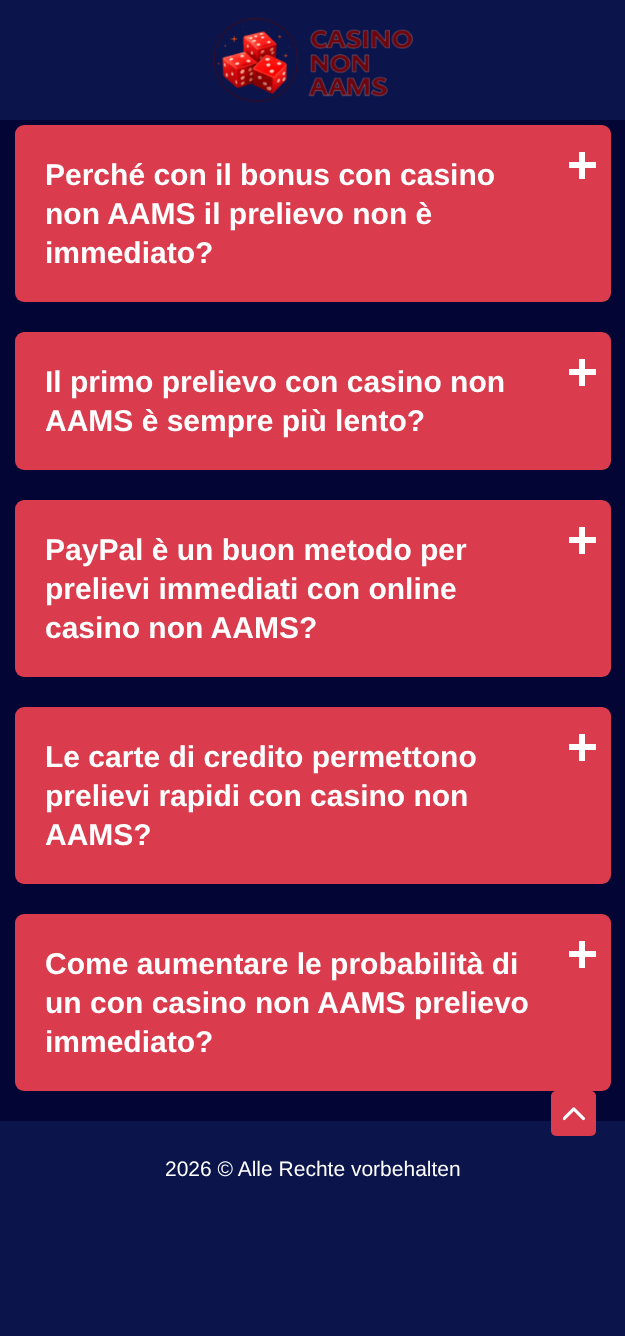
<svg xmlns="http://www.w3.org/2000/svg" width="625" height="1336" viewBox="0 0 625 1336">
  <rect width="100%" height="100%" fill="#030534"/>
  <rect x="0" y="0" width="625" height="120" fill="#0b154b"/>
  <image x="213" y="18" width="200" height="84" href="img1.png"/>
  <rect x="15" y="125" width="596" height="177" rx="9" fill="#da3b4d"/>
  <text x="45" y="185" font-family="Liberation Sans" font-size="30" font-weight="bold" fill="#ffffff">Perché con il bonus con casino</text>
  <text x="45" y="224" font-family="Liberation Sans" font-size="30" font-weight="bold" fill="#ffffff">non AAMS il prelievo non è</text>
  <text x="45" y="263" font-family="Liberation Sans" font-size="30" font-weight="bold" fill="#ffffff">immediato?</text>
  <rect x="569" y="162" width="27" height="6" fill="#ffffff"/>
  <rect x="579" y="152" width="6" height="27" fill="#ffffff"/>
  <rect x="15" y="332" width="596" height="138" rx="9" fill="#da3b4d"/>
  <text x="45" y="392" font-family="Liberation Sans" font-size="30" font-weight="bold" fill="#ffffff">Il primo prelievo con casino non</text>
  <text x="45" y="431" font-family="Liberation Sans" font-size="30" font-weight="bold" fill="#ffffff">AAMS è sempre più lento?</text>
  <rect x="569" y="369" width="27" height="6" fill="#ffffff"/>
  <rect x="579" y="359" width="6" height="27" fill="#ffffff"/>
  <rect x="15" y="500" width="596" height="177" rx="9" fill="#da3b4d"/>
  <text x="45" y="560" font-family="Liberation Sans" font-size="30" font-weight="bold" fill="#ffffff">PayPal è un buon metodo per</text>
  <text x="45" y="599" font-family="Liberation Sans" font-size="30" font-weight="bold" fill="#ffffff">prelievi immediati con online</text>
  <text x="45" y="638" font-family="Liberation Sans" font-size="30" font-weight="bold" fill="#ffffff">casino non AAMS?</text>
  <rect x="569" y="537" width="27" height="6" fill="#ffffff"/>
  <rect x="579" y="527" width="6" height="27" fill="#ffffff"/>
  <rect x="15" y="707" width="596" height="177" rx="9" fill="#da3b4d"/>
  <text x="45" y="767" font-family="Liberation Sans" font-size="30" font-weight="bold" fill="#ffffff">Le carte di credito permettono</text>
  <text x="45" y="806" font-family="Liberation Sans" font-size="30" font-weight="bold" fill="#ffffff">prelievi rapidi con casino non</text>
  <text x="45" y="845" font-family="Liberation Sans" font-size="30" font-weight="bold" fill="#ffffff">AAMS?</text>
  <rect x="569" y="744" width="27" height="6" fill="#ffffff"/>
  <rect x="579" y="734" width="6" height="27" fill="#ffffff"/>
  <rect x="15" y="914" width="596" height="177" rx="9" fill="#da3b4d"/>
  <text x="45" y="974" font-family="Liberation Sans" font-size="30" font-weight="bold" fill="#ffffff">Come aumentare le probabilità di</text>
  <text x="45" y="1013" font-family="Liberation Sans" font-size="30" font-weight="bold" fill="#ffffff">un con casino non AAMS prelievo</text>
  <text x="45" y="1052" font-family="Liberation Sans" font-size="30" font-weight="bold" fill="#ffffff">immediato?</text>
  <rect x="569" y="951" width="27" height="6" fill="#ffffff"/>
  <rect x="579" y="941" width="6" height="27" fill="#ffffff"/>
  <rect x="0" y="1121" width="625" height="215" fill="#0b154b"/>
  <text x="165" y="1176" font-family="Liberation Sans" font-size="21" fill="#ffffff">2026 © Alle Rechte vorbehalten</text>
  <rect x="551" y="1091" width="45" height="45" rx="5" fill="#da3b4d"/>
  <image x="563" y="1107" width="22" height="14" href="img2.png"/>
</svg>
